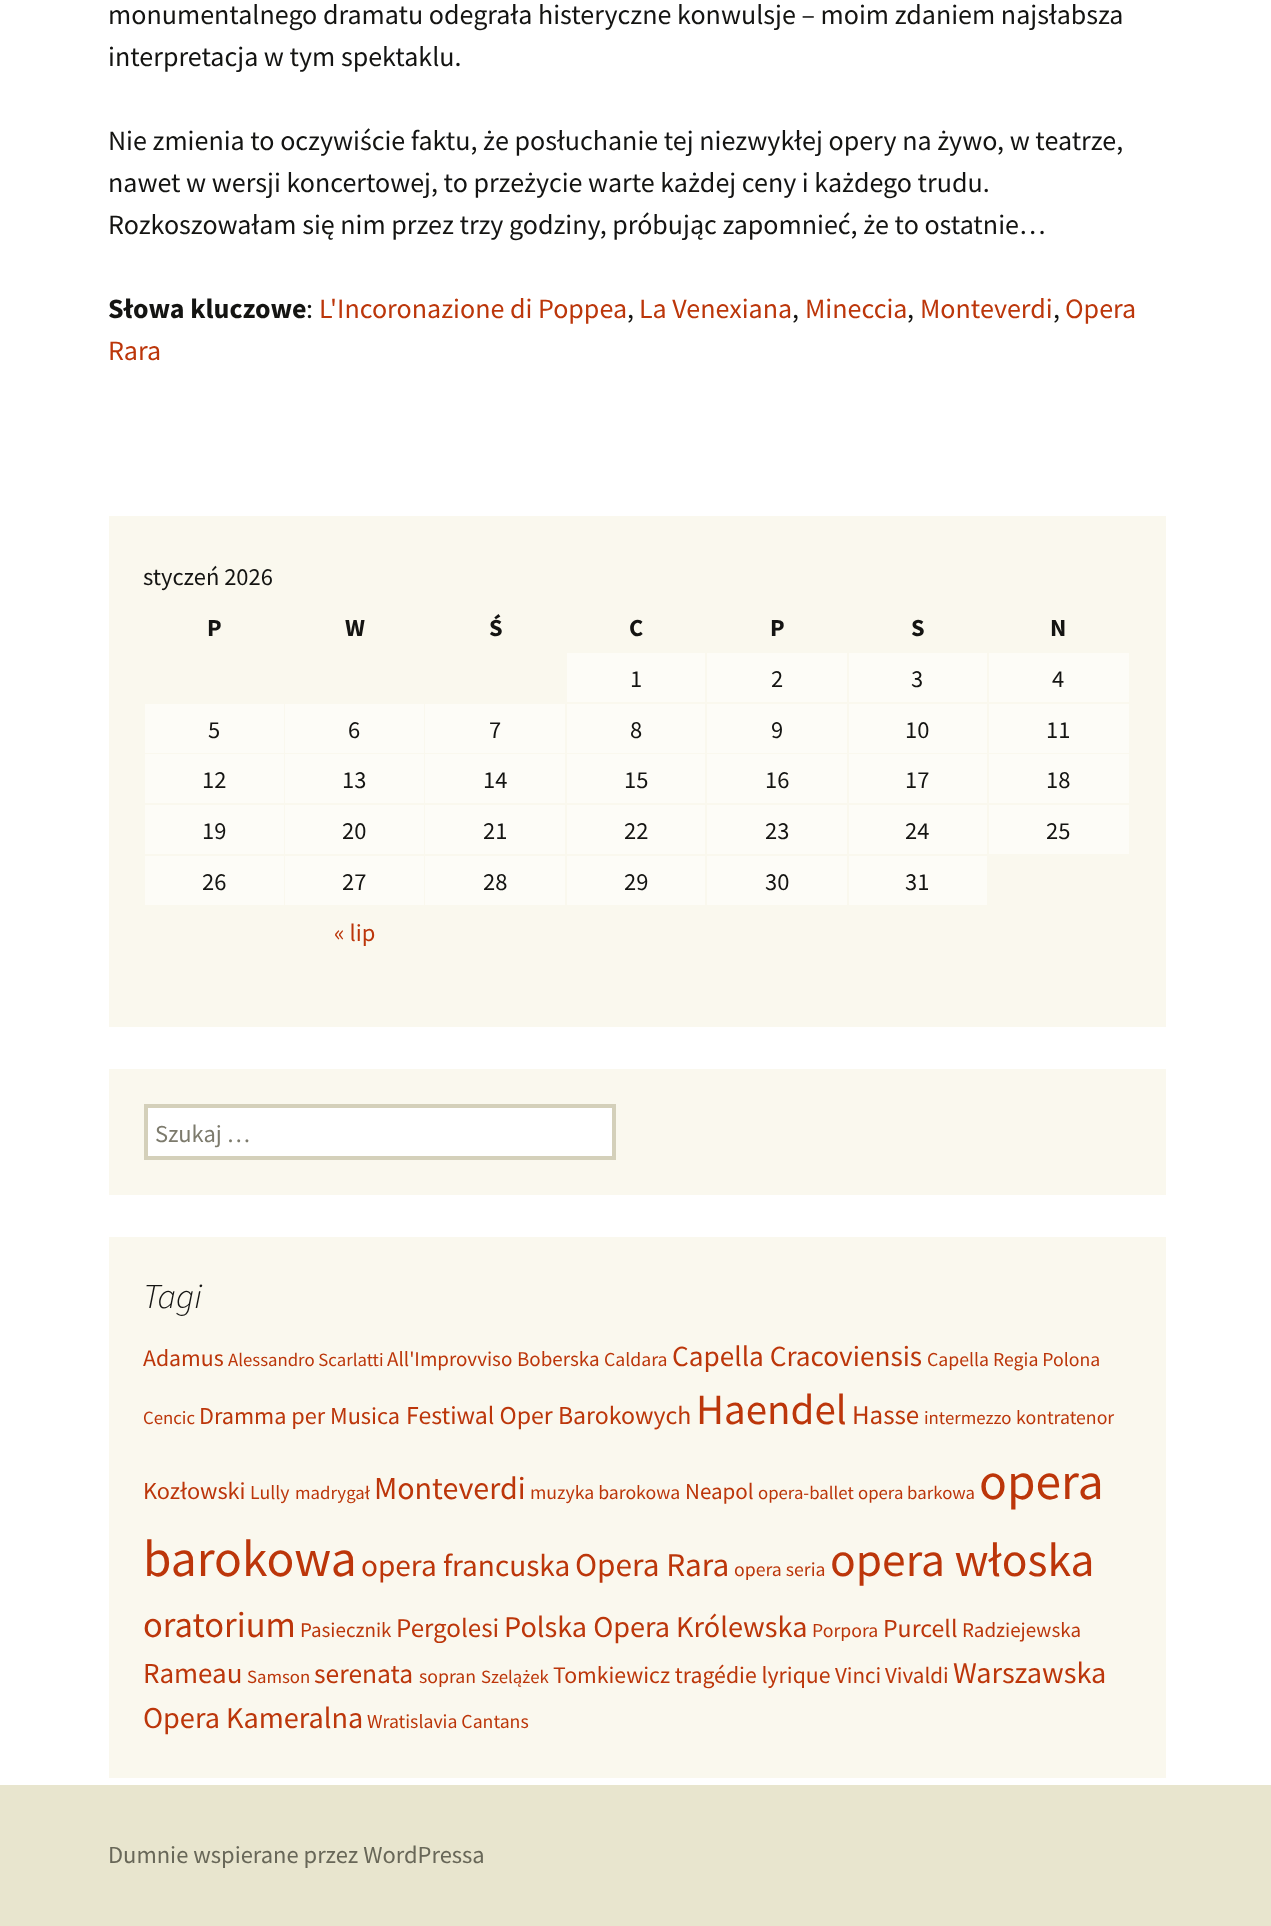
<svg xmlns="http://www.w3.org/2000/svg" width="1271" height="1926" viewBox="0 0 1271 1926">
  <rect width="100%" height="100%" fill="#ffffff"/>
  <text x="108" y="24" font-family="Source Sans Pro" font-size="28" fill="#141412">monumentalnego dramatu odegrała histeryczne konwulsje – moim zdaniem najsłabsza</text>
  <text x="108" y="66" font-family="Source Sans Pro" font-size="28" fill="#141412">interpretacja w tym spektaklu.</text>
  <text x="108" y="150" font-family="Source Sans Pro" font-size="28" fill="#141412">Nie zmienia to oczywiście faktu, że posłuchanie tej niezwykłej opery na żywo, w teatrze,</text>
  <text x="108" y="192" font-family="Source Sans Pro" font-size="28" fill="#141412">nawet w wersji koncertowej, to przeżycie warte każdej ceny i każdego trudu.</text>
  <text x="108" y="234" font-family="Source Sans Pro" font-size="28" fill="#141412">Rozkoszowałam się nim przez trzy godziny, próbując zapomnieć, że to ostatnie…</text>
  <text x="108" y="318" font-family="Source Sans Pro" font-size="28" font-weight="bold" fill="#141412">Słowa kluczowe</text>
  <text x="306" y="318" font-family="Source Sans Pro" font-size="28" fill="#141412">:</text>
  <text x="319" y="318" font-family="Source Sans Pro" font-size="28" fill="#bc360a">L'Incoronazione di Poppea</text>
  <text x="627" y="318" font-family="Source Sans Pro" font-size="28" fill="#141412">,</text>
  <text x="639" y="318" font-family="Source Sans Pro" font-size="28" fill="#bc360a">La Venexiana</text>
  <text x="792" y="318" font-family="Source Sans Pro" font-size="28" fill="#141412">,</text>
  <text x="805" y="318" font-family="Source Sans Pro" font-size="28" fill="#bc360a">Mineccia</text>
  <text x="907" y="318" font-family="Source Sans Pro" font-size="28" fill="#141412">,</text>
  <text x="920" y="318" font-family="Source Sans Pro" font-size="28" fill="#bc360a">Monteverdi</text>
  <text x="1053" y="318" font-family="Source Sans Pro" font-size="28" fill="#141412">,</text>
  <text x="1065" y="318" font-family="Source Sans Pro" font-size="28" fill="#bc360a">Opera</text>
  <text x="108" y="360" font-family="Source Sans Pro" font-size="28" fill="#bc360a">Rara</text>
  <rect x="109" y="516" width="1057" height="511" fill="#faf8ee"/>
  <text x="143" y="585" font-family="Source Sans Pro" font-size="24.5" fill="#141412">styczeń 2026</text>
  <text x="207" y="636" font-family="Source Sans Pro" font-size="24.5" font-weight="bold" fill="#141412">P</text>
  <text x="345" y="636" font-family="Source Sans Pro" font-size="24.5" font-weight="bold" fill="#141412">W</text>
  <text x="489" y="636" font-family="Source Sans Pro" font-size="24.5" font-weight="bold" fill="#141412">Ś</text>
  <text x="629" y="636" font-family="Source Sans Pro" font-size="24.5" font-weight="bold" fill="#141412">C</text>
  <text x="770" y="636" font-family="Source Sans Pro" font-size="24.5" font-weight="bold" fill="#141412">P</text>
  <text x="911" y="636" font-family="Source Sans Pro" font-size="24.5" font-weight="bold" fill="#141412">S</text>
  <text x="1050" y="636" font-family="Source Sans Pro" font-size="24.5" font-weight="bold" fill="#141412">N</text>
  <rect x="567" y="653" width="138" height="49" fill="#fdfcf7"/>
  <text x="630" y="687" font-family="Source Sans Pro" font-size="24.5" fill="#141412">1</text>
  <rect x="707" y="653" width="140" height="49" fill="#fdfcf7"/>
  <text x="771" y="687" font-family="Source Sans Pro" font-size="24.5" fill="#141412">2</text>
  <rect x="849" y="653" width="138" height="49" fill="#fdfcf7"/>
  <text x="911" y="687" font-family="Source Sans Pro" font-size="24.5" fill="#141412">3</text>
  <rect x="989" y="653" width="140" height="49" fill="#fdfcf7"/>
  <text x="1052" y="687" font-family="Source Sans Pro" font-size="24.5" fill="#141412">4</text>
  <rect x="145" y="704" width="139" height="49" fill="#fdfcf7"/>
  <text x="208" y="738" font-family="Source Sans Pro" font-size="24.5" fill="#141412">5</text>
  <rect x="285" y="704" width="139" height="49" fill="#fdfcf7"/>
  <text x="348" y="738" font-family="Source Sans Pro" font-size="24.5" fill="#141412">6</text>
  <rect x="425" y="704" width="140" height="49" fill="#fdfcf7"/>
  <text x="489" y="738" font-family="Source Sans Pro" font-size="24.5" fill="#141412">7</text>
  <rect x="567" y="704" width="138" height="49" fill="#fdfcf7"/>
  <text x="630" y="738" font-family="Source Sans Pro" font-size="24.5" fill="#141412">8</text>
  <rect x="707" y="704" width="140" height="49" fill="#fdfcf7"/>
  <text x="771" y="738" font-family="Source Sans Pro" font-size="24.5" fill="#141412">9</text>
  <rect x="849" y="704" width="138" height="49" fill="#fdfcf7"/>
  <text x="905" y="738" font-family="Source Sans Pro" font-size="24.5" fill="#141412">10</text>
  <rect x="989" y="704" width="140" height="49" fill="#fdfcf7"/>
  <text x="1046" y="738" font-family="Source Sans Pro" font-size="24.5" fill="#141412">11</text>
  <rect x="145" y="754" width="139" height="49" fill="#fdfcf7"/>
  <text x="202" y="788" font-family="Source Sans Pro" font-size="24.5" fill="#141412">12</text>
  <rect x="285" y="754" width="139" height="49" fill="#fdfcf7"/>
  <text x="342" y="788" font-family="Source Sans Pro" font-size="24.5" fill="#141412">13</text>
  <rect x="425" y="754" width="140" height="49" fill="#fdfcf7"/>
  <text x="483" y="788" font-family="Source Sans Pro" font-size="24.5" fill="#141412">14</text>
  <rect x="567" y="754" width="138" height="49" fill="#fdfcf7"/>
  <text x="624" y="788" font-family="Source Sans Pro" font-size="24.5" fill="#141412">15</text>
  <rect x="707" y="754" width="140" height="49" fill="#fdfcf7"/>
  <text x="765" y="788" font-family="Source Sans Pro" font-size="24.5" fill="#141412">16</text>
  <rect x="849" y="754" width="138" height="49" fill="#fdfcf7"/>
  <text x="905" y="788" font-family="Source Sans Pro" font-size="24.5" fill="#141412">17</text>
  <rect x="989" y="754" width="140" height="49" fill="#fdfcf7"/>
  <text x="1046" y="788" font-family="Source Sans Pro" font-size="24.5" fill="#141412">18</text>
  <rect x="145" y="805" width="139" height="49" fill="#fdfcf7"/>
  <text x="202" y="839" font-family="Source Sans Pro" font-size="24.5" fill="#141412">19</text>
  <rect x="285" y="805" width="139" height="49" fill="#fdfcf7"/>
  <text x="342" y="839" font-family="Source Sans Pro" font-size="24.5" fill="#141412">20</text>
  <rect x="425" y="805" width="140" height="49" fill="#fdfcf7"/>
  <text x="483" y="839" font-family="Source Sans Pro" font-size="24.5" fill="#141412">21</text>
  <rect x="567" y="805" width="138" height="49" fill="#fdfcf7"/>
  <text x="624" y="839" font-family="Source Sans Pro" font-size="24.5" fill="#141412">22</text>
  <rect x="707" y="805" width="140" height="49" fill="#fdfcf7"/>
  <text x="765" y="839" font-family="Source Sans Pro" font-size="24.5" fill="#141412">23</text>
  <rect x="849" y="805" width="138" height="49" fill="#fdfcf7"/>
  <text x="905" y="839" font-family="Source Sans Pro" font-size="24.5" fill="#141412">24</text>
  <rect x="989" y="805" width="140" height="49" fill="#fdfcf7"/>
  <text x="1046" y="839" font-family="Source Sans Pro" font-size="24.5" fill="#141412">25</text>
  <rect x="145" y="856" width="139" height="49" fill="#fdfcf7"/>
  <text x="202" y="890" font-family="Source Sans Pro" font-size="24.5" fill="#141412">26</text>
  <rect x="285" y="856" width="139" height="49" fill="#fdfcf7"/>
  <text x="342" y="890" font-family="Source Sans Pro" font-size="24.5" fill="#141412">27</text>
  <rect x="425" y="856" width="140" height="49" fill="#fdfcf7"/>
  <text x="483" y="890" font-family="Source Sans Pro" font-size="24.5" fill="#141412">28</text>
  <rect x="567" y="856" width="138" height="49" fill="#fdfcf7"/>
  <text x="624" y="890" font-family="Source Sans Pro" font-size="24.5" fill="#141412">29</text>
  <rect x="707" y="856" width="140" height="49" fill="#fdfcf7"/>
  <text x="765" y="890" font-family="Source Sans Pro" font-size="24.5" fill="#141412">30</text>
  <rect x="849" y="856" width="138" height="49" fill="#fdfcf7"/>
  <text x="905" y="890" font-family="Source Sans Pro" font-size="24.5" fill="#141412">31</text>
  <text x="334" y="941" font-family="Source Sans Pro" font-size="24.5" fill="#bc360a">« lip</text>
  <rect x="109" y="1069" width="1057" height="126" fill="#faf8ee"/>
  <rect x="146" y="1106" width="468" height="52" fill="#ffffff" stroke="#d4d0ba" stroke-width="4"/>
  <text x="155" y="1142" font-family="Source Sans Pro" font-size="24.5" fill="#7d7b6d">Szukaj …</text>
  <rect x="109" y="1237" width="1057" height="541" fill="#faf8ee"/>
  <text x="143" y="1308" font-family="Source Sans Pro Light" font-size="35" font-weight="300" font-style="italic" fill="#141412">Tagi</text>
  <text x="143" y="1366" font-family="Source Sans Pro" font-size="23.75" fill="#bc360a">Adamus</text>
  <text x="228" y="1366" font-family="Source Sans Pro" font-size="18.75" fill="#bc360a">Alessandro Scarlatti</text>
  <text x="387" y="1366" font-family="Source Sans Pro" font-size="21" fill="#bc360a">All'Improvviso</text>
  <text x="517" y="1366" font-family="Source Sans Pro" font-size="21" fill="#bc360a">Boberska</text>
  <text x="604" y="1366" font-family="Source Sans Pro" font-size="19.75" fill="#bc360a">Caldara</text>
  <text x="672" y="1366" font-family="Source Sans Pro" font-size="29.25" fill="#bc360a">Capella Cracoviensis</text>
  <text x="927" y="1366" font-family="Source Sans Pro" font-size="19.75" fill="#bc360a">Capella Regia Polona</text>
  <text x="143" y="1424" font-family="Source Sans Pro" font-size="18.75" fill="#bc360a">Cencic</text>
  <text x="199" y="1424" font-family="Source Sans Pro" font-size="24.25" fill="#bc360a">Dramma per Musica</text>
  <text x="406" y="1424" font-family="Source Sans Pro" font-size="25.8" fill="#bc360a">Festiwal Oper Barokowych</text>
  <text x="696" y="1424" font-family="Source Sans Pro" font-size="43" fill="#bc360a">Haendel</text>
  <text x="852" y="1424" font-family="Source Sans Pro" font-size="27" fill="#bc360a">Hasse</text>
  <text x="924" y="1424" font-family="Source Sans Pro" font-size="18.75" fill="#bc360a">intermezzo</text>
  <text x="1016" y="1424" font-family="Source Sans Pro" font-size="19.75" fill="#bc360a">kontratenor</text>
  <text x="143" y="1499" font-family="Source Sans Pro" font-size="24.25" fill="#bc360a">Kozłowski</text>
  <text x="250" y="1499" font-family="Source Sans Pro" font-size="19.75" fill="#bc360a">Lully</text>
  <text x="295" y="1499" font-family="Source Sans Pro" font-size="18.75" fill="#bc360a">madrygał</text>
  <text x="374" y="1499" font-family="Source Sans Pro" font-size="32" fill="#bc360a">Monteverdi</text>
  <text x="530" y="1499" font-family="Source Sans Pro" font-size="19.75" fill="#bc360a">muzyka barokowa</text>
  <text x="685" y="1499" font-family="Source Sans Pro" font-size="23" fill="#bc360a">Neapol</text>
  <text x="758" y="1499" font-family="Source Sans Pro" font-size="18.75" fill="#bc360a">opera-ballet</text>
  <text x="858" y="1499" font-family="Source Sans Pro" font-size="18.75" fill="#bc360a">opera barkowa</text>
  <text x="979" y="1499" font-family="Source Sans Pro" font-size="51.5" fill="#bc360a">opera</text>
  <text x="143" y="1576" font-family="Source Sans Pro" font-size="51.5" fill="#bc360a">barokowa</text>
  <text x="361" y="1576" font-family="Source Sans Pro" font-size="31.25" fill="#bc360a">opera francuska</text>
  <text x="575" y="1576" font-family="Source Sans Pro" font-size="33.25" fill="#bc360a">Opera Rara</text>
  <text x="734" y="1576" font-family="Source Sans Pro" font-size="19.75" fill="#bc360a">opera seria</text>
  <text x="830" y="1576" font-family="Source Sans Pro" font-size="47.5" fill="#bc360a">opera włoska</text>
  <text x="143" y="1637" font-family="Source Sans Pro" font-size="36.5" fill="#bc360a">oratorium</text>
  <text x="300" y="1637" font-family="Source Sans Pro" font-size="21" fill="#bc360a">Pasiecznik</text>
  <text x="396" y="1637" font-family="Source Sans Pro" font-size="27" fill="#bc360a">Pergolesi</text>
  <text x="504" y="1637" font-family="Source Sans Pro" font-size="30.25" fill="#bc360a">Polska Opera Królewska</text>
  <text x="812" y="1637" font-family="Source Sans Pro" font-size="19.75" fill="#bc360a">Porpora</text>
  <text x="883" y="1637" font-family="Source Sans Pro" font-size="25.8" fill="#bc360a">Purcell</text>
  <text x="962" y="1637" font-family="Source Sans Pro" font-size="21" fill="#bc360a">Radziejewska</text>
  <text x="143" y="1683" font-family="Source Sans Pro" font-size="29" fill="#bc360a">Rameau</text>
  <text x="247" y="1683" font-family="Source Sans Pro" font-size="18.75" fill="#bc360a">Samson</text>
  <text x="314" y="1683" font-family="Source Sans Pro" font-size="27.5" fill="#bc360a">serenata</text>
  <text x="419" y="1683" font-family="Source Sans Pro" font-size="19.75" fill="#bc360a">sopran</text>
  <text x="481" y="1683" font-family="Source Sans Pro" font-size="18.75" fill="#bc360a">Szelążek</text>
  <text x="553" y="1683" font-family="Source Sans Pro" font-size="23.75" fill="#bc360a">Tomkiewicz tragédie lyrique</text>
  <text x="835" y="1683" font-family="Source Sans Pro" font-size="23" fill="#bc360a">Vinci</text>
  <text x="885" y="1683" font-family="Source Sans Pro" font-size="23" fill="#bc360a">Vivaldi</text>
  <text x="953" y="1683" font-family="Source Sans Pro" font-size="30.25" fill="#bc360a">Warszawska</text>
  <text x="143" y="1728" font-family="Source Sans Pro" font-size="30.25" fill="#bc360a">Opera Kameralna</text>
  <text x="367" y="1728" font-family="Source Sans Pro" font-size="19.75" fill="#bc360a">Wratislavia Cantans</text>
  <rect x="0" y="1785" width="1271" height="141" fill="#e8e5ce"/>
  <text x="108" y="1863" font-family="Source Sans Pro" font-size="24.5" fill="#686758">Dumnie wspierane przez WordPressa</text>
</svg>
